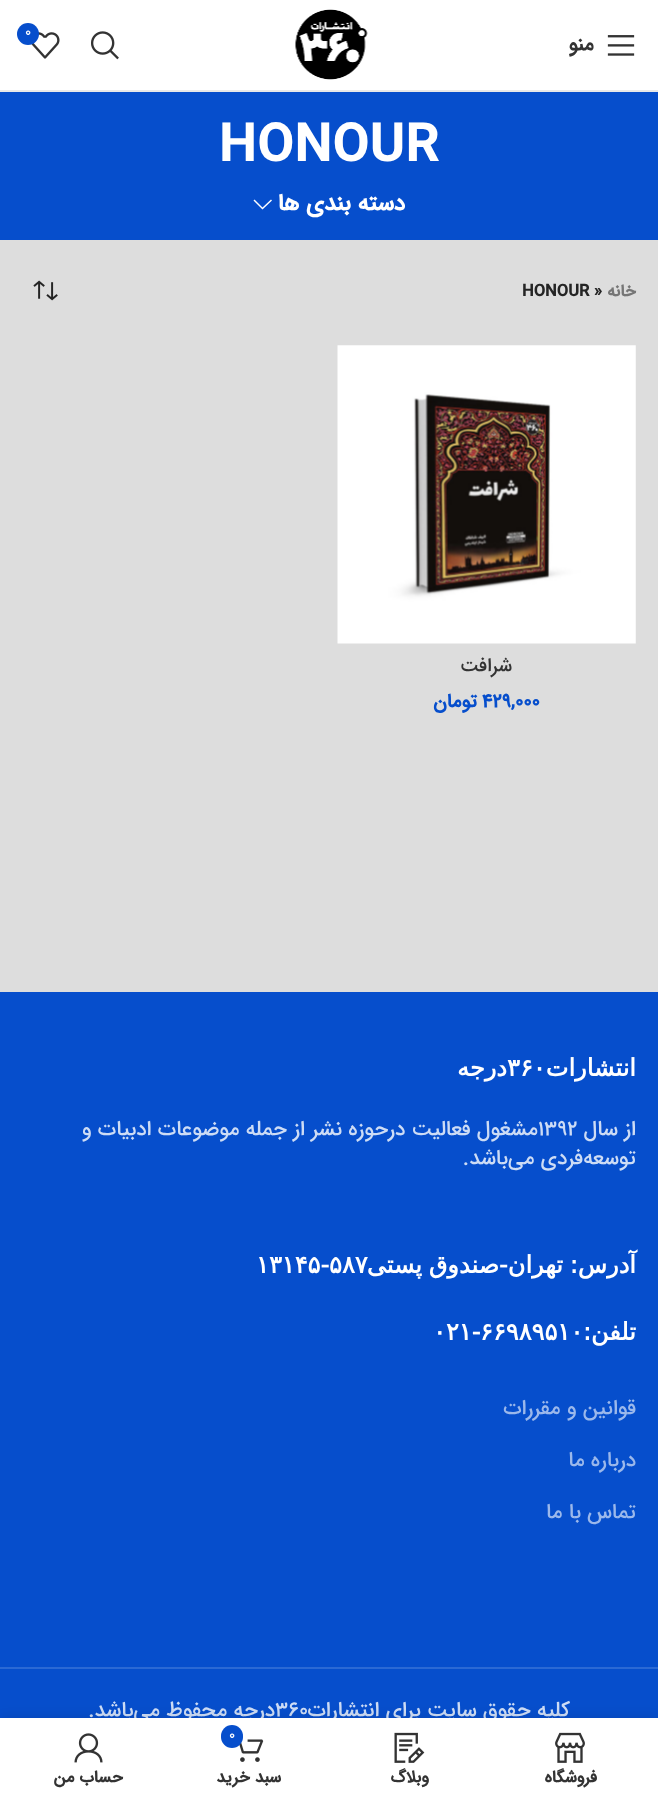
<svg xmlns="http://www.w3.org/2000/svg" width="658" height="1799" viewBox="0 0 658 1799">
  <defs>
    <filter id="blur1" x="-50%" y="-200%" width="200%" height="500%"><feGaussianBlur stdDeviation="7"/></filter>
  </defs>
  <rect width="100%" height="100%" fill="#ffffff"/>
  <rect x="0" y="90" width="658" height="2" fill="#e8e8e8"/>
  <image x="295" y="9" width="73" height="71" href="img1.png"/>
  <image x="91" y="31" width="28" height="29" href="img2.png"/>
  <image x="31" y="32" width="29" height="27" href="img3.png"/>
  <circle cx="28" cy="34" r="11" fill="#064ecc"/>
  <text x="25" y="36" font-family="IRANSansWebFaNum" font-size="14" font-weight="500" fill="#ffffff">0</text>
  <image x="607" y="35" width="28" height="21" href="img4.png"/>
  <text x="594" y="50" font-family="IRANSansWebFaNum" font-size="20" font-weight="bold" direction="rtl" fill="#333333">منو</text>
  <rect x="0" y="240" width="658" height="752" fill="#dddddd"/>
  <rect x="0" y="92" width="658" height="148" fill="#064ecc"/>
  <text x="219" y="161" font-family="IRANSansWebFaNum" font-size="54" font-weight="bold" fill="#ffffff">HONOUR</text>
  <text x="405" y="210" font-family="'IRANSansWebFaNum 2'" font-size="23" font-weight="bold" direction="rtl" fill="#ffffff">دسته بندی ها</text>
  <path d="M271 199.5L262.5 207.5L254.5 199.5L253.5 200.5L262.5 209.5L272 200.5Z" fill="#ffffff"/>
  <text x="636" y="296" font-family="'IRANSansWebFaNum 2'" font-size="16.5" font-weight="bold" direction="rtl" fill="#767676">خانه</text>
  <text x="594" y="296" font-family="'IRANSansWebFaNum 2'" font-size="16.5" font-weight="bold" fill="#242424">»</text>
  <text x="522" y="296" font-family="'IRANSansWebFaNum 2'" font-size="16.5" font-weight="bold" fill="#242424">HONOUR</text>
  <image x="33" y="280" width="25" height="21" href="img5.png"/>
  <image x="337" y="345" width="299" height="299" href="img6.png"/>
  <text x="512" y="671" font-family="IRANSansWebFaNum" font-size="19" font-weight="500" direction="rtl" fill="#333333">شرافت</text>
  <text x="482" y="707" font-family="'IRANSansWebFaNum 2'" font-size="19" font-weight="bold" fill="#064ecc">۴۲۹,۰۰۰</text>
  <text x="477" y="707" font-family="'IRANSansWebFaNum 2'" font-size="19" font-weight="bold" direction="rtl" fill="#064ecc">تومان</text>
  <rect x="0" y="992" width="658" height="726" fill="#064ecc"/>
  <text x="636" y="1076" font-family="DejaVu Sans" font-size="24" font-weight="bold" direction="rtl" fill="#ffffff">انتشارات</text>
  <text x="507" y="1076" font-family="DejaVu Sans" font-size="24" font-weight="bold" fill="#ffffff">۳۶۰</text>
  <text x="507" y="1076" font-family="DejaVu Sans" font-size="24" font-weight="bold" direction="rtl" fill="#ffffff">درجه</text>
  <text x="636" y="1135" font-family="IRANSansWebFaNum" font-size="21" font-weight="500" direction="rtl" fill="#cddcf5">از سال</text>
  <text x="538" y="1135" font-family="IRANSansWebFaNum" font-size="21" font-weight="500" fill="#cddcf5">۱۳۹۲</text>
  <text x="538" y="1135" font-family="IRANSansWebFaNum" font-size="21" font-weight="500" direction="rtl" fill="#cddcf5">مشغول فعاليت درحوزه نشر از جمله موضوعات ادبيات و</text>
  <text x="636" y="1164" font-family="IRANSansWebFaNum" font-size="21" font-weight="500" direction="rtl" fill="#cddcf5">توسعه‌فردی می‌باشد.</text>
  <text x="636" y="1273" word-spacing="-1" font-family="DejaVu Sans" font-size="24" font-weight="bold" direction="rtl" fill="#ffffff">آدرس: تهران-صندوق پستی</text>
  <text x="329" y="1273" font-family="DejaVu Sans" font-size="24" font-weight="bold" fill="#ffffff">۵۸۷</text>
  <text x="256" y="1273" font-family="DejaVu Sans" font-size="24" font-weight="bold" fill="#ffffff">۱۳۱۴۵-</text>
  <text x="636" y="1340" font-family="DejaVu Sans" font-size="24" font-weight="bold" direction="rtl" fill="#ffffff">تلفن:</text>
  <text x="480" y="1340" font-family="DejaVu Sans" font-size="24" font-weight="bold" fill="#ffffff">۶۶۹۸۹۵۱۰</text>
  <text x="433" y="1340" font-family="DejaVu Sans" font-size="24" font-weight="bold" fill="#ffffff">۰۲۱-</text>
  <text x="636" y="1414" font-family="IRANSansWebFaNum" font-size="21" font-weight="500" direction="rtl" fill="#9bb8eb">قوانين و مقررات</text>
  <text x="636" y="1466" font-family="IRANSansWebFaNum" font-size="21" font-weight="500" direction="rtl" fill="#9bb8eb">درباره ما</text>
  <text x="636" y="1518" font-family="IRANSansWebFaNum" font-size="21" font-weight="500" direction="rtl" fill="#9bb8eb">تماس با ما</text>
  <rect x="0" y="1667" width="658" height="2" fill="#2b69d4"/>
  <text x="570" y="1716" font-family="IRANSansWebFaNum" font-size="21" font-weight="500" direction="rtl" fill="#cddcf5">كليه حقوق سايت برای انتشارات</text>
  <text x="275" y="1716" font-family="IRANSansWebFaNum" font-size="21" font-weight="500" fill="#cddcf5">۳۶۰</text>
  <text x="275" y="1716" font-family="IRANSansWebFaNum" font-size="21" font-weight="500" direction="rtl" fill="#cddcf5">درجه محفوظ می‌باشد.</text>
  <rect x="0" y="1718" width="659" height="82" fill="#000000" fill-opacity="0.12" filter="url(#blur1)"/>
  <rect x="0" y="1718" width="658" height="81" fill="#ffffff"/>
  <image x="555" y="1732" width="30" height="31" href="img7.png"/>
  <text x="597" y="1782" font-family="'IRANSansWebFaNum 2'" font-size="16.5" font-weight="bold" direction="rtl" fill="#333333">فروشگاه</text>
  <image x="394" y="1732" width="31" height="31" href="img8.png"/>
  <text x="429" y="1782" font-family="'IRANSansWebFaNum 2'" font-size="16.5" font-weight="bold" direction="rtl" fill="#333333">وبلاگ</text>
  <image x="239" y="1739" width="25" height="23" href="img9.png"/>
  <rect x="221" y="1725" width="22" height="23" rx="11" fill="#064ecc"/>
  <text x="229" y="1739" font-family="IRANSansWebFaNum" font-size="14" font-weight="500" fill="#ffffff">۰</text>
  <text x="281" y="1782" font-family="'IRANSansWebFaNum 2'" font-size="16.5" font-weight="bold" direction="rtl" fill="#333333">سبد خرید</text>
  <image x="74" y="1733" width="29" height="30" href="img10.png"/>
  <text x="123" y="1782" font-family="'IRANSansWebFaNum 2'" font-size="16.5" font-weight="bold" direction="rtl" fill="#333333">حساب من</text>
</svg>
